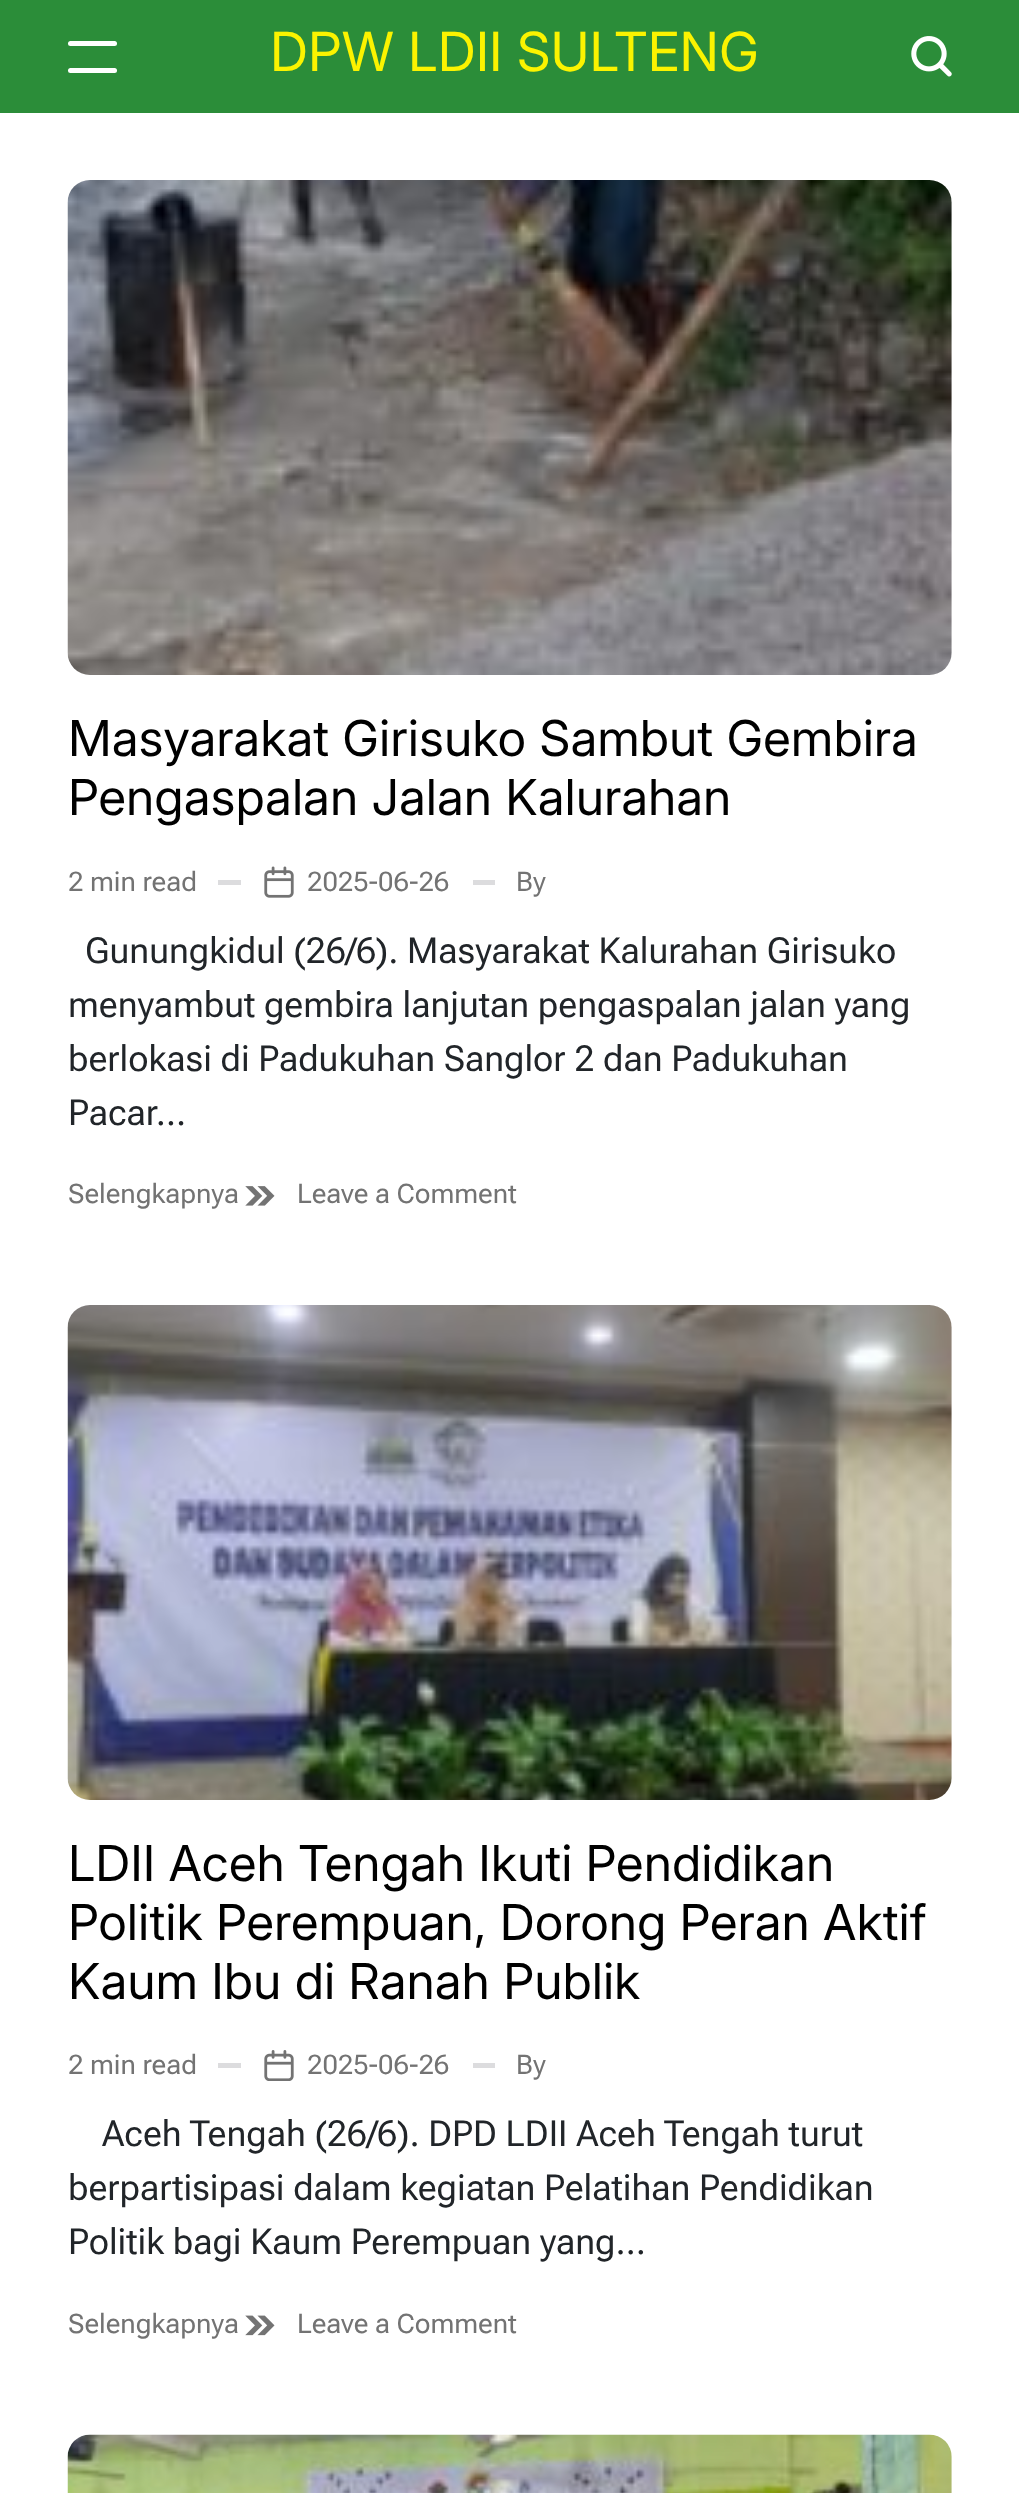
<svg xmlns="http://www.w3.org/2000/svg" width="1019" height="2493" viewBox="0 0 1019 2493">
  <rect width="100%" height="100%" fill="#ffffff"/>
  <rect x="0" y="0" width="1019" height="113" fill="#2b8d39"/>
  <rect x="68" y="41" width="49" height="5" rx="2.5" fill="#ffffff"/>
  <rect x="68" y="68" width="49" height="5" rx="2.5" fill="#ffffff"/>
  <text x="270" y="71" font-family="Inter" font-size="54" fill="#fbf300">DPW LDII SULTENG</text>
  <image x="911" y="36" width="41" height="41" href="img1.png"/>
  <image x="67" y="180" width="885" height="495" href="img2.png"/>
  <text x="68" y="756" font-family="'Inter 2'" font-size="49.5" fill="#000000">Masyarakat Girisuko Sambut Gembira</text>
  <text x="68" y="815" font-family="'Inter 2'" font-size="49.5" fill="#000000">Pengaspalan Jalan Kalurahan</text>
  <text x="68" y="891" font-family="Roboto Flex" font-size="27" fill="#737373">2 min read</text>
  <rect x="218" y="880" width="23" height="5" fill="#dcdcde"/>
  <image x="264" y="866" width="30" height="32" href="img3.png"/>
  <text x="307" y="891" font-family="Roboto Flex" font-size="27" fill="#737373">2025-06-26</text>
  <rect x="473" y="880" width="22" height="5" fill="#dcdcde"/>
  <text x="516" y="891" font-family="Roboto Flex" font-size="27" fill="#737373">By</text>
  <text x="85" y="963" font-family="'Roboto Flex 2'" font-size="36" fill="#212529">Gunungkidul (26/6). Masyarakat Kalurahan Girisuko</text>
  <text x="68" y="1017" font-family="'Roboto Flex 2'" font-size="36" fill="#212529">menyambut gembira lanjutan pengaspalan jalan yang</text>
  <text x="68" y="1071" font-family="'Roboto Flex 2'" font-size="36" fill="#212529">berlokasi di Padukuhan Sanglor 2 dan Padukuhan</text>
  <text x="68" y="1125" font-family="'Roboto Flex 2'" font-size="36" fill="#212529">Pacar…</text>
  <text x="68" y="1203" font-family="Roboto Flex" font-size="27" fill="#737373">Selengkapnya</text>
  <image x="245" y="1186" width="30" height="20" href="img4.png"/>
  <text x="297" y="1203" font-family="Roboto Flex" font-size="27" fill="#737373">Leave a Comment</text>
  <image x="67" y="1305" width="885" height="495" href="img5.png"/>
  <text x="68" y="1881" font-family="'Inter 2'" font-size="49.5" fill="#000000">LDII Aceh Tengah Ikuti Pendidikan</text>
  <text x="68" y="1940" font-family="'Inter 2'" font-size="49.5" fill="#000000">Politik Perempuan, Dorong Peran Aktif</text>
  <text x="68" y="1999" font-family="'Inter 2'" font-size="49.5" fill="#000000">Kaum Ibu di Ranah Publik</text>
  <text x="68" y="2074" font-family="Roboto Flex" font-size="27" fill="#737373">2 min read</text>
  <rect x="218" y="2063" width="23" height="5" fill="#dcdcde"/>
  <image x="264" y="2050" width="30" height="31" href="img6.png"/>
  <text x="307" y="2074" font-family="Roboto Flex" font-size="27" fill="#737373">2025-06-26</text>
  <rect x="473" y="2063" width="22" height="5" fill="#dcdcde"/>
  <text x="516" y="2074" font-family="Roboto Flex" font-size="27" fill="#737373">By</text>
  <text x="102" y="2146" font-family="'Roboto Flex 2'" font-size="36" fill="#212529">Aceh Tengah (26/6). DPD LDII Aceh Tengah turut</text>
  <text x="68" y="2200" font-family="'Roboto Flex 2'" font-size="36" fill="#212529">berpartisipasi dalam kegiatan Pelatihan Pendidikan</text>
  <text x="68" y="2254" font-family="'Roboto Flex 2'" font-size="36" fill="#212529">Politik bagi Kaum Perempuan yang…</text>
  <text x="68" y="2333" font-family="Roboto Flex" font-size="27" fill="#737373">Selengkapnya</text>
  <image x="245" y="2315" width="30" height="21" href="img7.png"/>
  <text x="297" y="2333" font-family="Roboto Flex" font-size="27" fill="#737373">Leave a Comment</text>
  <image x="67" y="2434" width="885" height="59" href="img8.png"/>
</svg>
